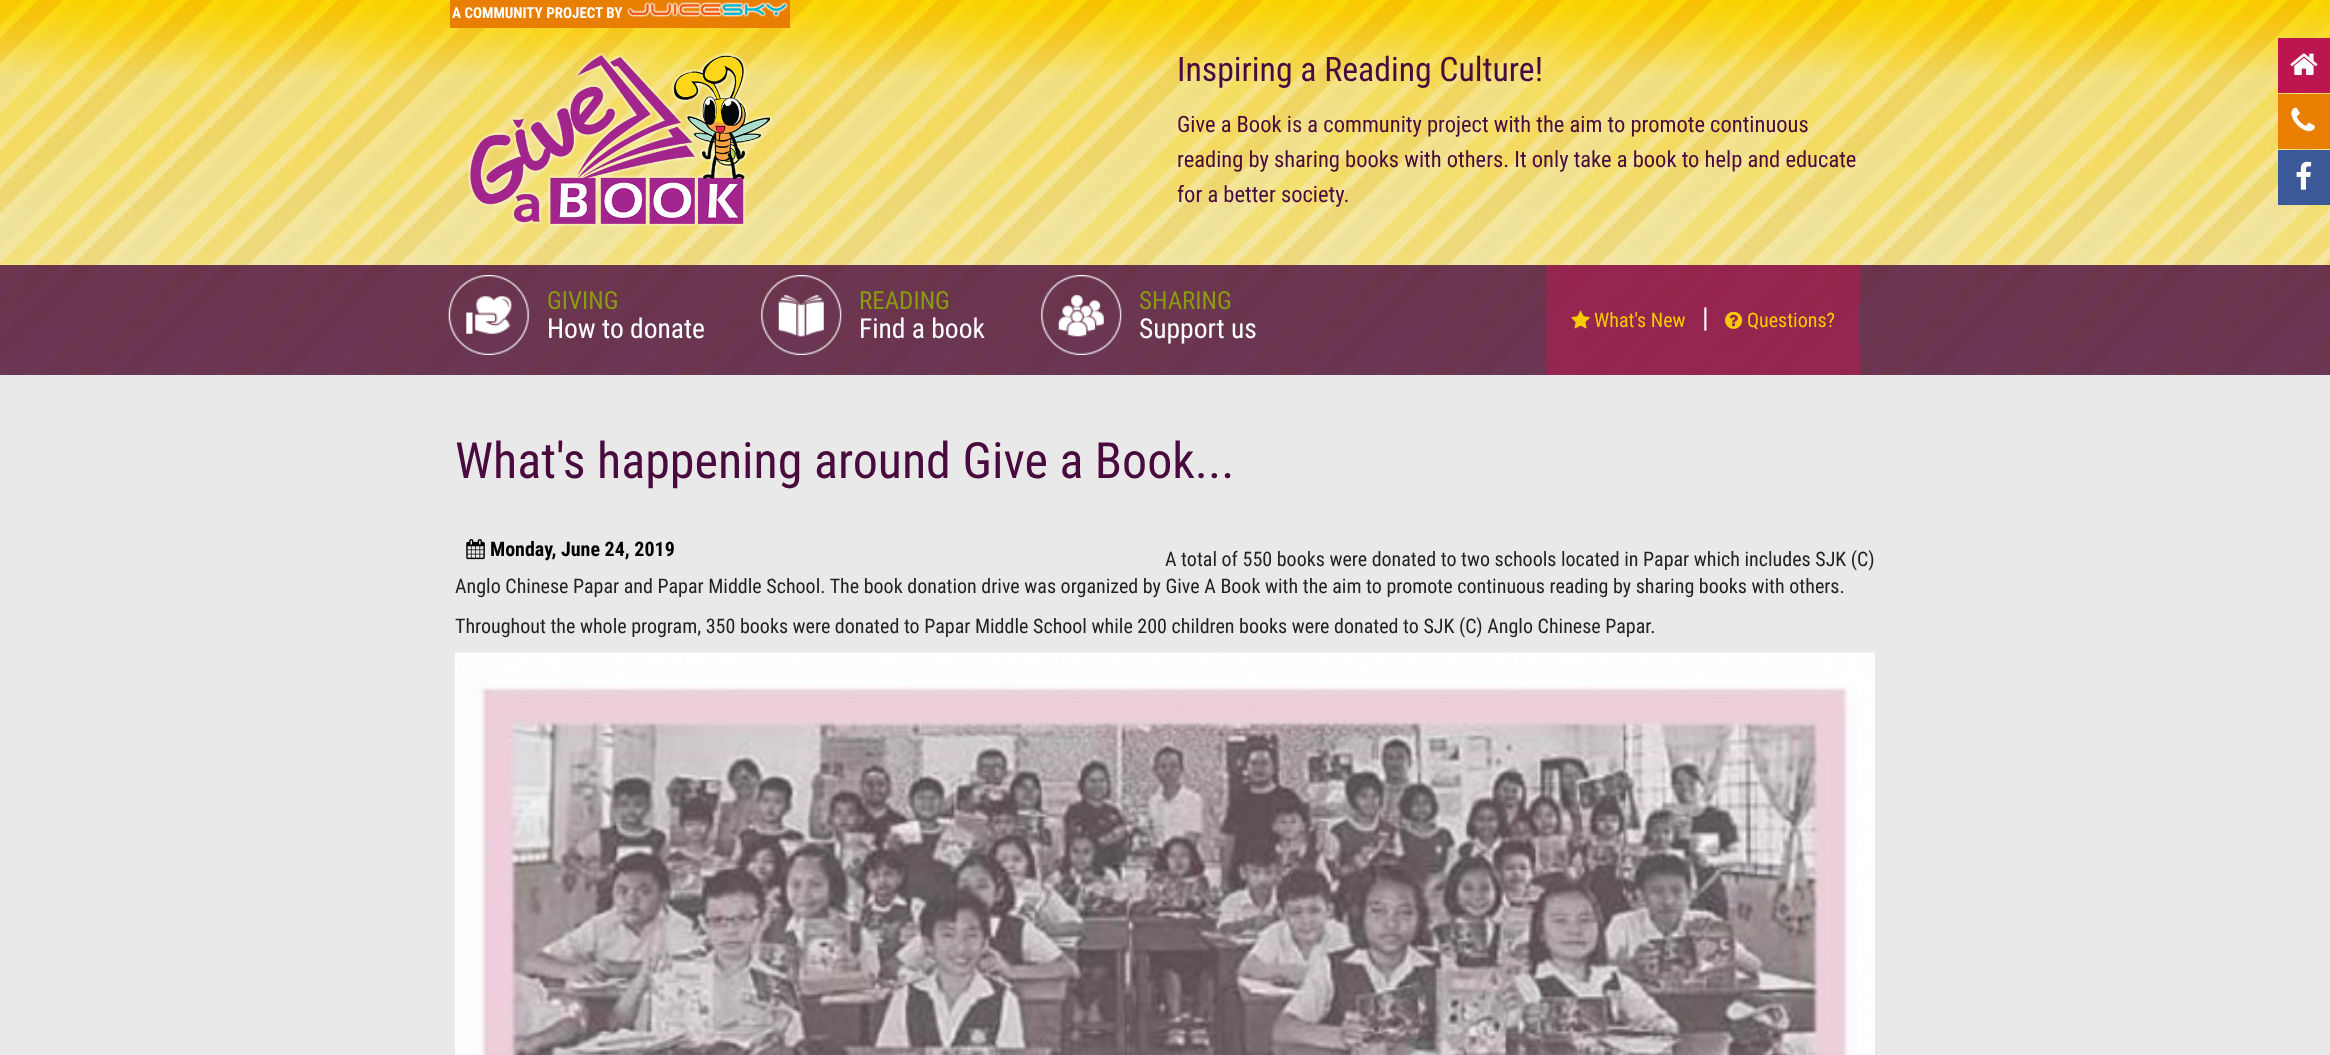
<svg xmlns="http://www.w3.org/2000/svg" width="2330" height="1055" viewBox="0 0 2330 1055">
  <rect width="100%" height="100%" fill="#e9e9e9"/>
  <image x="0" y="0" width="2330" height="375" href="img1.png"/>
  <rect x="450" y="0" width="340" height="28" fill="#e97f02"/>
  <text x="452" y="18" font-family="Roboto Condensed" font-size="15" font-weight="bold" fill="#ffffff">A COMMUNITY PROJECT BY</text>
  <image x="627" y="2" width="161" height="15" href="img2.png"/>
  <image x="467" y="52" width="306" height="175" href="img3.png"/>
  <text x="1177" y="81" font-family="Roboto Condensed" font-size="33.75" fill="#490a3d">Inspiring a Reading Culture!</text>
  <text x="1177" y="132" font-family="Roboto Condensed" font-size="22.5" fill="#490a3d">Give a Book is a community project with the aim to promote continuous</text>
  <text x="1177" y="167" font-family="Roboto Condensed" font-size="22.5" fill="#490a3d">reading by sharing books with others. It only take a book to help and educate</text>
  <text x="1177" y="202" font-family="Roboto Condensed" font-size="22.5" fill="#490a3d">for a better society.</text>
  <rect x="0" y="265" width="2330" height="110" fill="#490a3d" fill-opacity="0.8"/>
  <image x="448" y="275" width="81" height="80" href="img4.png"/>
  <text x="547" y="309" font-family="Roboto Condensed" font-size="25" fill="#8a9b0f">GIVING</text>
  <text x="547" y="338" font-family="Roboto Condensed" font-size="27.5" fill="#ffffff">How to donate</text>
  <image x="761" y="275" width="81" height="80" href="img5.png"/>
  <text x="859" y="309" font-family="Roboto Condensed" font-size="25" fill="#8a9b0f">READING</text>
  <text x="859" y="338" font-family="Roboto Condensed" font-size="27.5" fill="#ffffff">Find a book</text>
  <image x="1041" y="275" width="81" height="80" href="img6.png"/>
  <text x="1139" y="309" font-family="Roboto Condensed" font-size="25" fill="#8a9b0f">SHARING</text>
  <text x="1139" y="338" font-family="Roboto Condensed" font-size="27.5" fill="#ffffff">Support us</text>
  <rect x="1546" y="265" width="314" height="110" fill="#bd1550" fill-opacity="0.5"/>
  <image x="1571" y="310" width="19" height="19" href="img7.png"/>
  <text x="1594" y="327" font-family="Roboto Condensed" font-size="20" fill="#f8ca00">What's New</text>
  <text x="1702" y="327" font-family="Roboto Condensed" font-size="27.5" fill="#ffffff">|</text>
  <image x="1725" y="311" width="18" height="18" href="img8.png"/>
  <text x="1747" y="327" font-family="Roboto Condensed" font-size="20" fill="#f8ca00">Questions?</text>
  <rect x="2278" y="38" width="52" height="55" fill="#bd1550"/>
  <image x="2290" y="53" width="28" height="22" href="img9.png"/>
  <rect x="2278" y="94" width="52" height="55" fill="#e97f02"/>
  <image x="2291" y="107" width="24" height="25" href="img10.png"/>
  <rect x="2278" y="150" width="52" height="55" fill="#3b5998"/>
  <image x="2296" y="161" width="16" height="29" href="img11.png"/>
  <text x="455" y="478" font-family="Roboto Condensed" font-size="50" fill="#490a3d">What's happening around Give a Book...</text>
  <image x="466" y="539" width="19" height="21" href="img12.png"/>
  <text x="490" y="556" font-family="Roboto Condensed" font-size="20" font-weight="bold" fill="#000000">Monday, June 24, 2019</text>
  <text x="1165" y="566" font-family="Roboto Condensed" font-size="20" fill="#222222">A total of 550 books were donated to two schools located in Papar which includes SJK (C)</text>
  <text x="455" y="593" font-family="Roboto Condensed" font-size="20" fill="#222222">Anglo Chinese Papar and Papar Middle School. The book donation drive was organized by Give A Book with the aim to promote continuous reading by sharing books with others.</text>
  <text x="455" y="633" font-family="Roboto Condensed" font-size="20" fill="#222222">Throughout the whole program, 350 books were donated to Papar Middle School while 200 children books were donated to SJK (C) Anglo Chinese Papar.</text>
  <image x="455" y="652" width="1420" height="403" href="img13.png"/>
</svg>
